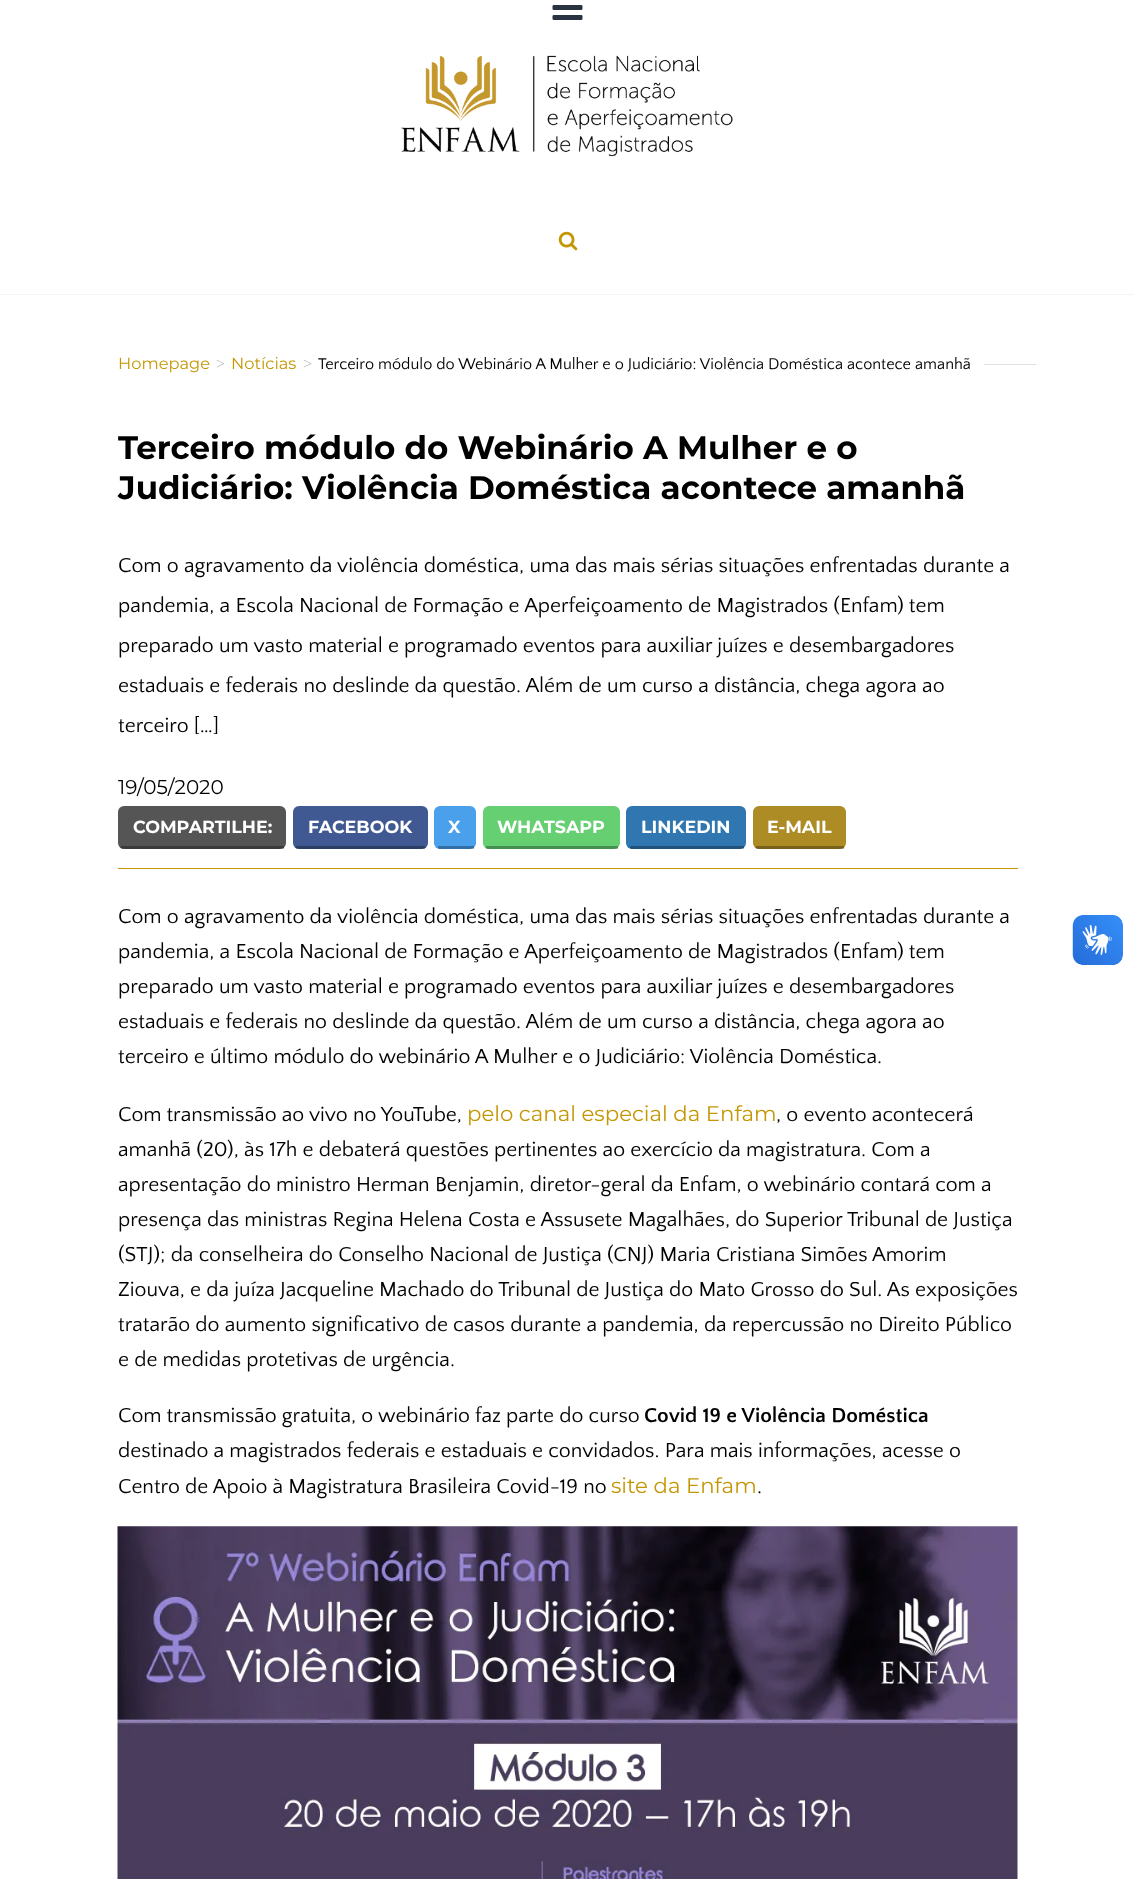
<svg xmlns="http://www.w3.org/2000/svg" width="1134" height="1879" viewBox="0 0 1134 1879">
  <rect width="100%" height="100%" fill="#ffffff"/>
  <image x="552" y="5" width="31" height="15" href="img1.png"/>
  <image x="401" y="55" width="332" height="102" href="img2.png"/>
  <image x="558" y="231" width="20" height="20" href="img3.png"/>
  <rect x="0" y="294" width="1134" height="1" fill="#f3f3f4"/>
  <text x="118" y="369" font-family="Montserrat" font-size="16.25" fill="#c49602">Homepage</text>
  <text x="216" y="369" font-family="Liberation Serif" font-size="16.25" fill="#b6b8b9">&gt;</text>
  <text x="231" y="369" font-family="Montserrat" font-size="16.25" fill="#c49602">Notícias</text>
  <text x="303" y="369" font-family="Liberation Serif" font-size="16.25" fill="#b6b8b9">&gt;</text>
  <text x="318" y="369" font-family="Quattrocento Sans" font-size="16.25" fill="#000000">Terceiro módulo do Webinário A Mulher e o Judiciário: Violência Doméstica acontece amanhã</text>
  <rect x="984" y="364" width="52" height="1" fill="#dee0e1"/>
  <text x="118" y="459" font-family="Montserrat" font-size="32.5" font-weight="bold" fill="#000000">Terceiro módulo do Webinário A Mulher e o</text>
  <text x="118" y="499" font-family="Montserrat" font-size="32.5" font-weight="bold" fill="#000000">Judiciário: Violência Doméstica acontece amanhã</text>
  <text x="118" y="572" font-family="Quattrocento Sans" font-size="21.25" fill="#000000">Com o agravamento da violência doméstica, uma das mais sérias situações enfrentadas durante a</text>
  <text x="118" y="612" font-family="Quattrocento Sans" font-size="21.25" fill="#000000">pandemia, a Escola Nacional de Formação e Aperfeiçoamento de Magistrados (Enfam) tem</text>
  <text x="118" y="652" font-family="Quattrocento Sans" font-size="21.25" fill="#000000">preparado um vasto material e programado eventos para auxiliar juízes e desembargadores</text>
  <text x="118" y="692" font-family="Quattrocento Sans" font-size="21.25" fill="#000000">estaduais e federais no deslinde da questão. Além de um curso a distância, chega agora ao</text>
  <text x="118" y="732" font-family="Quattrocento Sans" font-size="21.25" fill="#000000">terceiro […]</text>
  <text x="118" y="794" font-family="Montserrat" font-size="20" fill="#000000">19/05/2020</text>
  <rect x="118" y="868" width="900" height="1" fill="#c49602"/>
  <rect x="118" y="806" width="168" height="43" rx="6" fill="#555555"/>
  <rect x="121" y="846" width="163" height="3" fill="#000000" fill-opacity="0.3"/>
  <text x="133" y="833" font-family="Montserrat" font-size="17.5" font-weight="bold" fill="#ffffff">COMPARTILHE:</text>
  <rect x="293" y="806" width="135" height="43" rx="6" fill="#415993"/>
  <rect x="296" y="846" width="129" height="3" fill="#000000" fill-opacity="0.3"/>
  <text x="308" y="833" font-family="Montserrat" font-size="17.5" font-weight="bold" fill="#ffffff">FACEBOOK</text>
  <rect x="434" y="806" width="42" height="43" rx="6" fill="#4aa0eb"/>
  <rect x="438" y="846" width="36" height="3" fill="#000000" fill-opacity="0.3"/>
  <text x="448" y="833" font-family="Montserrat" font-size="17.5" font-weight="bold" fill="#ffffff">X</text>
  <rect x="483" y="806" width="137" height="43" rx="6" fill="#65cf72"/>
  <rect x="486" y="846" width="132" height="3" fill="#000000" fill-opacity="0.3"/>
  <text x="497" y="833" font-family="Montserrat" font-size="17.5" font-weight="bold" fill="#ffffff">WHATSAPP</text>
  <rect x="626" y="806" width="120" height="43" rx="6" fill="#3076b0"/>
  <rect x="630" y="846" width="114" height="3" fill="#000000" fill-opacity="0.3"/>
  <text x="641" y="833" font-family="Montserrat" font-size="17.5" font-weight="bold" fill="#ffffff">LINKEDIN</text>
  <rect x="753" y="806" width="93" height="43" rx="6" fill="#ad8c26"/>
  <rect x="756" y="846" width="88" height="3" fill="#000000" fill-opacity="0.3"/>
  <text x="767" y="833" font-family="Montserrat" font-size="17.5" font-weight="bold" fill="#ffffff">E-MAIL</text>
  <text x="118" y="923" font-family="Quattrocento Sans" font-size="21.25" fill="#000000">Com o agravamento da violência doméstica, uma das mais sérias situações enfrentadas durante a</text>
  <text x="118" y="958" font-family="Quattrocento Sans" font-size="21.25" fill="#000000">pandemia, a Escola Nacional de Formação e Aperfeiçoamento de Magistrados (Enfam) tem</text>
  <text x="118" y="993" font-family="Quattrocento Sans" font-size="21.25" fill="#000000">preparado um vasto material e programado eventos para auxiliar juízes e desembargadores</text>
  <text x="118" y="1028" font-family="Quattrocento Sans" font-size="21.25" fill="#000000">estaduais e federais no deslinde da questão. Além de um curso a distância, chega agora ao</text>
  <text x="118" y="1063" font-family="Quattrocento Sans" font-size="21.25" fill="#000000">terceiro e último módulo do webinário A Mulher e o Judiciário: Violência Doméstica.</text>
  <text x="118" y="1121" font-family="Quattrocento Sans" font-size="21.25" fill="#000000">Com transmissão ao vivo no YouTube,</text>
  <text x="467" y="1121" font-family="Montserrat" font-size="21.25" fill="#c49602">pelo canal especial da Enfam</text>
  <text x="776" y="1121" font-family="Quattrocento Sans" font-size="21.25" fill="#000000">, o evento acontecerá</text>
  <text x="118" y="1156" font-family="Quattrocento Sans" font-size="21.25" fill="#000000">amanhã (20), às 17h e debaterá questões pertinentes ao exercício da magistratura. Com a</text>
  <text x="118" y="1191" font-family="Quattrocento Sans" font-size="21.25" fill="#000000">apresentação do ministro Herman Benjamin, diretor-geral da Enfam, o webinário contará com a</text>
  <text x="118" y="1226" font-family="Quattrocento Sans" font-size="21.25" fill="#000000">presença das ministras Regina Helena Costa e Assusete Magalhães, do Superior Tribunal de Justiça</text>
  <text x="118" y="1261" font-family="Quattrocento Sans" font-size="21.25" fill="#000000">(STJ); da conselheira do Conselho Nacional de Justiça (CNJ) Maria Cristiana Simões Amorim</text>
  <text x="118" y="1296" font-family="Quattrocento Sans" font-size="21.25" fill="#000000">Ziouva, e da juíza Jacqueline Machado do Tribunal de Justiça do Mato Grosso do Sul. As exposições</text>
  <text x="118" y="1331" font-family="Quattrocento Sans" font-size="21.25" fill="#000000">tratarão do aumento significativo de casos durante a pandemia, da repercussão no Direito Público</text>
  <text x="118" y="1366" font-family="Quattrocento Sans" font-size="21.25" fill="#000000">e de medidas protetivas de urgência.</text>
  <text x="118" y="1422" font-family="Quattrocento Sans" font-size="21.25" fill="#000000">Com transmissão gratuita, o webinário faz parte do curso</text>
  <text x="644" y="1422" font-family="Quattrocento Sans" font-size="21.25" font-weight="bold" fill="#000000">Covid 19 e Violência Doméstica</text>
  <text x="118" y="1457" font-family="Quattrocento Sans" font-size="21.25" fill="#000000">destinado a magistrados federais e estaduais e convidados. Para mais informações, acesse o</text>
  <text x="118" y="1493" font-family="Quattrocento Sans" font-size="21.25" fill="#000000">Centro de Apoio à Magistratura Brasileira Covid-19 no</text>
  <text x="611" y="1493" font-family="Montserrat" font-size="21.25" fill="#c49602">site da Enfam</text>
  <text x="757" y="1493" font-family="Quattrocento Sans" font-size="21.25" fill="#000000">.</text>
  <image x="117" y="1526" width="901" height="353" href="img4.png"/>
  <image x="1072" y="915" width="51" height="50" href="img5.png"/>
  <image x="1073" y="915" width="50" height="50" href="img6.png"/>
</svg>
